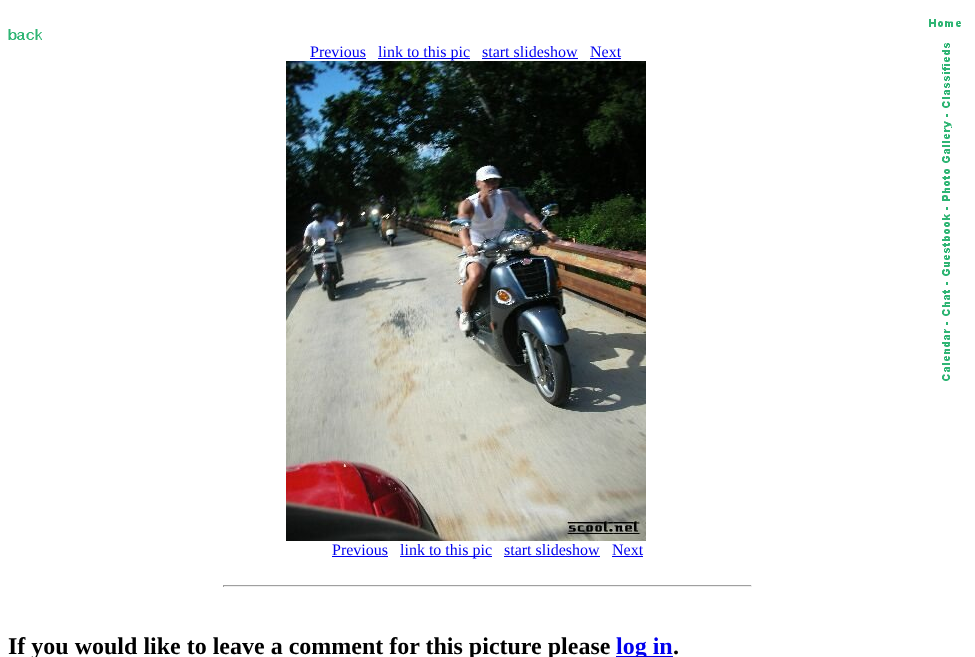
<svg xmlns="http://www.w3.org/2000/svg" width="975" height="657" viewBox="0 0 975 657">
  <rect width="100%" height="100%" fill="#ffffff"/>
  <image x="8" y="29" width="34" height="11" href="img1.png"/>
  <image x="929" y="19" width="32" height="8" href="img2.png"/>
  <image x="942" y="43" width="10" height="338" href="img3.png"/>
  <text x="310" y="57" font-family="Liberation Serif" font-size="16" fill="#0000ee">Previous</text>
  <rect x="310" y="58" width="56" height="1" fill="#0000ee"/>
  <rect x="378" y="58" width="92" height="1" fill="#0000ee"/>
  <text x="378" y="57" font-family="Liberation Serif" font-size="16" fill="#0000ee">link to this pic</text>
  <text x="482" y="57" font-family="Liberation Serif" font-size="16" fill="#0000ee">start slideshow</text>
  <rect x="482" y="58" width="96" height="1" fill="#0000ee"/>
  <text x="590" y="57" font-family="Liberation Serif" font-size="16" fill="#0000ee">Next</text>
  <rect x="590" y="58" width="31" height="1" fill="#0000ee"/>
  <image x="286" y="61" width="360" height="480" href="img4.png"/>
  <text x="332" y="555" font-family="Liberation Serif" font-size="16" fill="#0000ee">Previous</text>
  <rect x="332" y="556" width="56" height="1" fill="#0000ee"/>
  <rect x="400" y="556" width="92" height="1" fill="#0000ee"/>
  <text x="400" y="555" font-family="Liberation Serif" font-size="16" fill="#0000ee">link to this pic</text>
  <text x="504" y="555" font-family="Liberation Serif" font-size="16" fill="#0000ee">start slideshow</text>
  <rect x="504" y="556" width="96" height="1" fill="#0000ee"/>
  <text x="612" y="555" font-family="Liberation Serif" font-size="16" fill="#0000ee">Next</text>
  <rect x="612" y="556" width="31" height="1" fill="#0000ee"/>
  <rect x="223" y="585" width="529" height="1" fill="#9f9f9f"/>
  <rect x="751" y="585" width="1" height="2" fill="#eeeeee"/>
  <rect x="223" y="586" width="529" height="1" fill="#eeeeee"/>
  <rect x="223" y="585" width="1" height="2" fill="#9f9f9f"/>
  <text x="8" y="654" font-family="Liberation Serif" font-size="24" font-weight="bold" fill="#000000">If you would like to leave a comment for this picture please</text>
  <rect x="616" y="656" width="57" height="1" fill="#0000ee"/>
  <text x="616" y="654" font-family="Liberation Serif" font-size="24" font-weight="bold" fill="#0000ee">log in</text>
  <text x="673" y="654" font-family="Liberation Serif" font-size="24" font-weight="bold" fill="#000000">.</text>
</svg>
